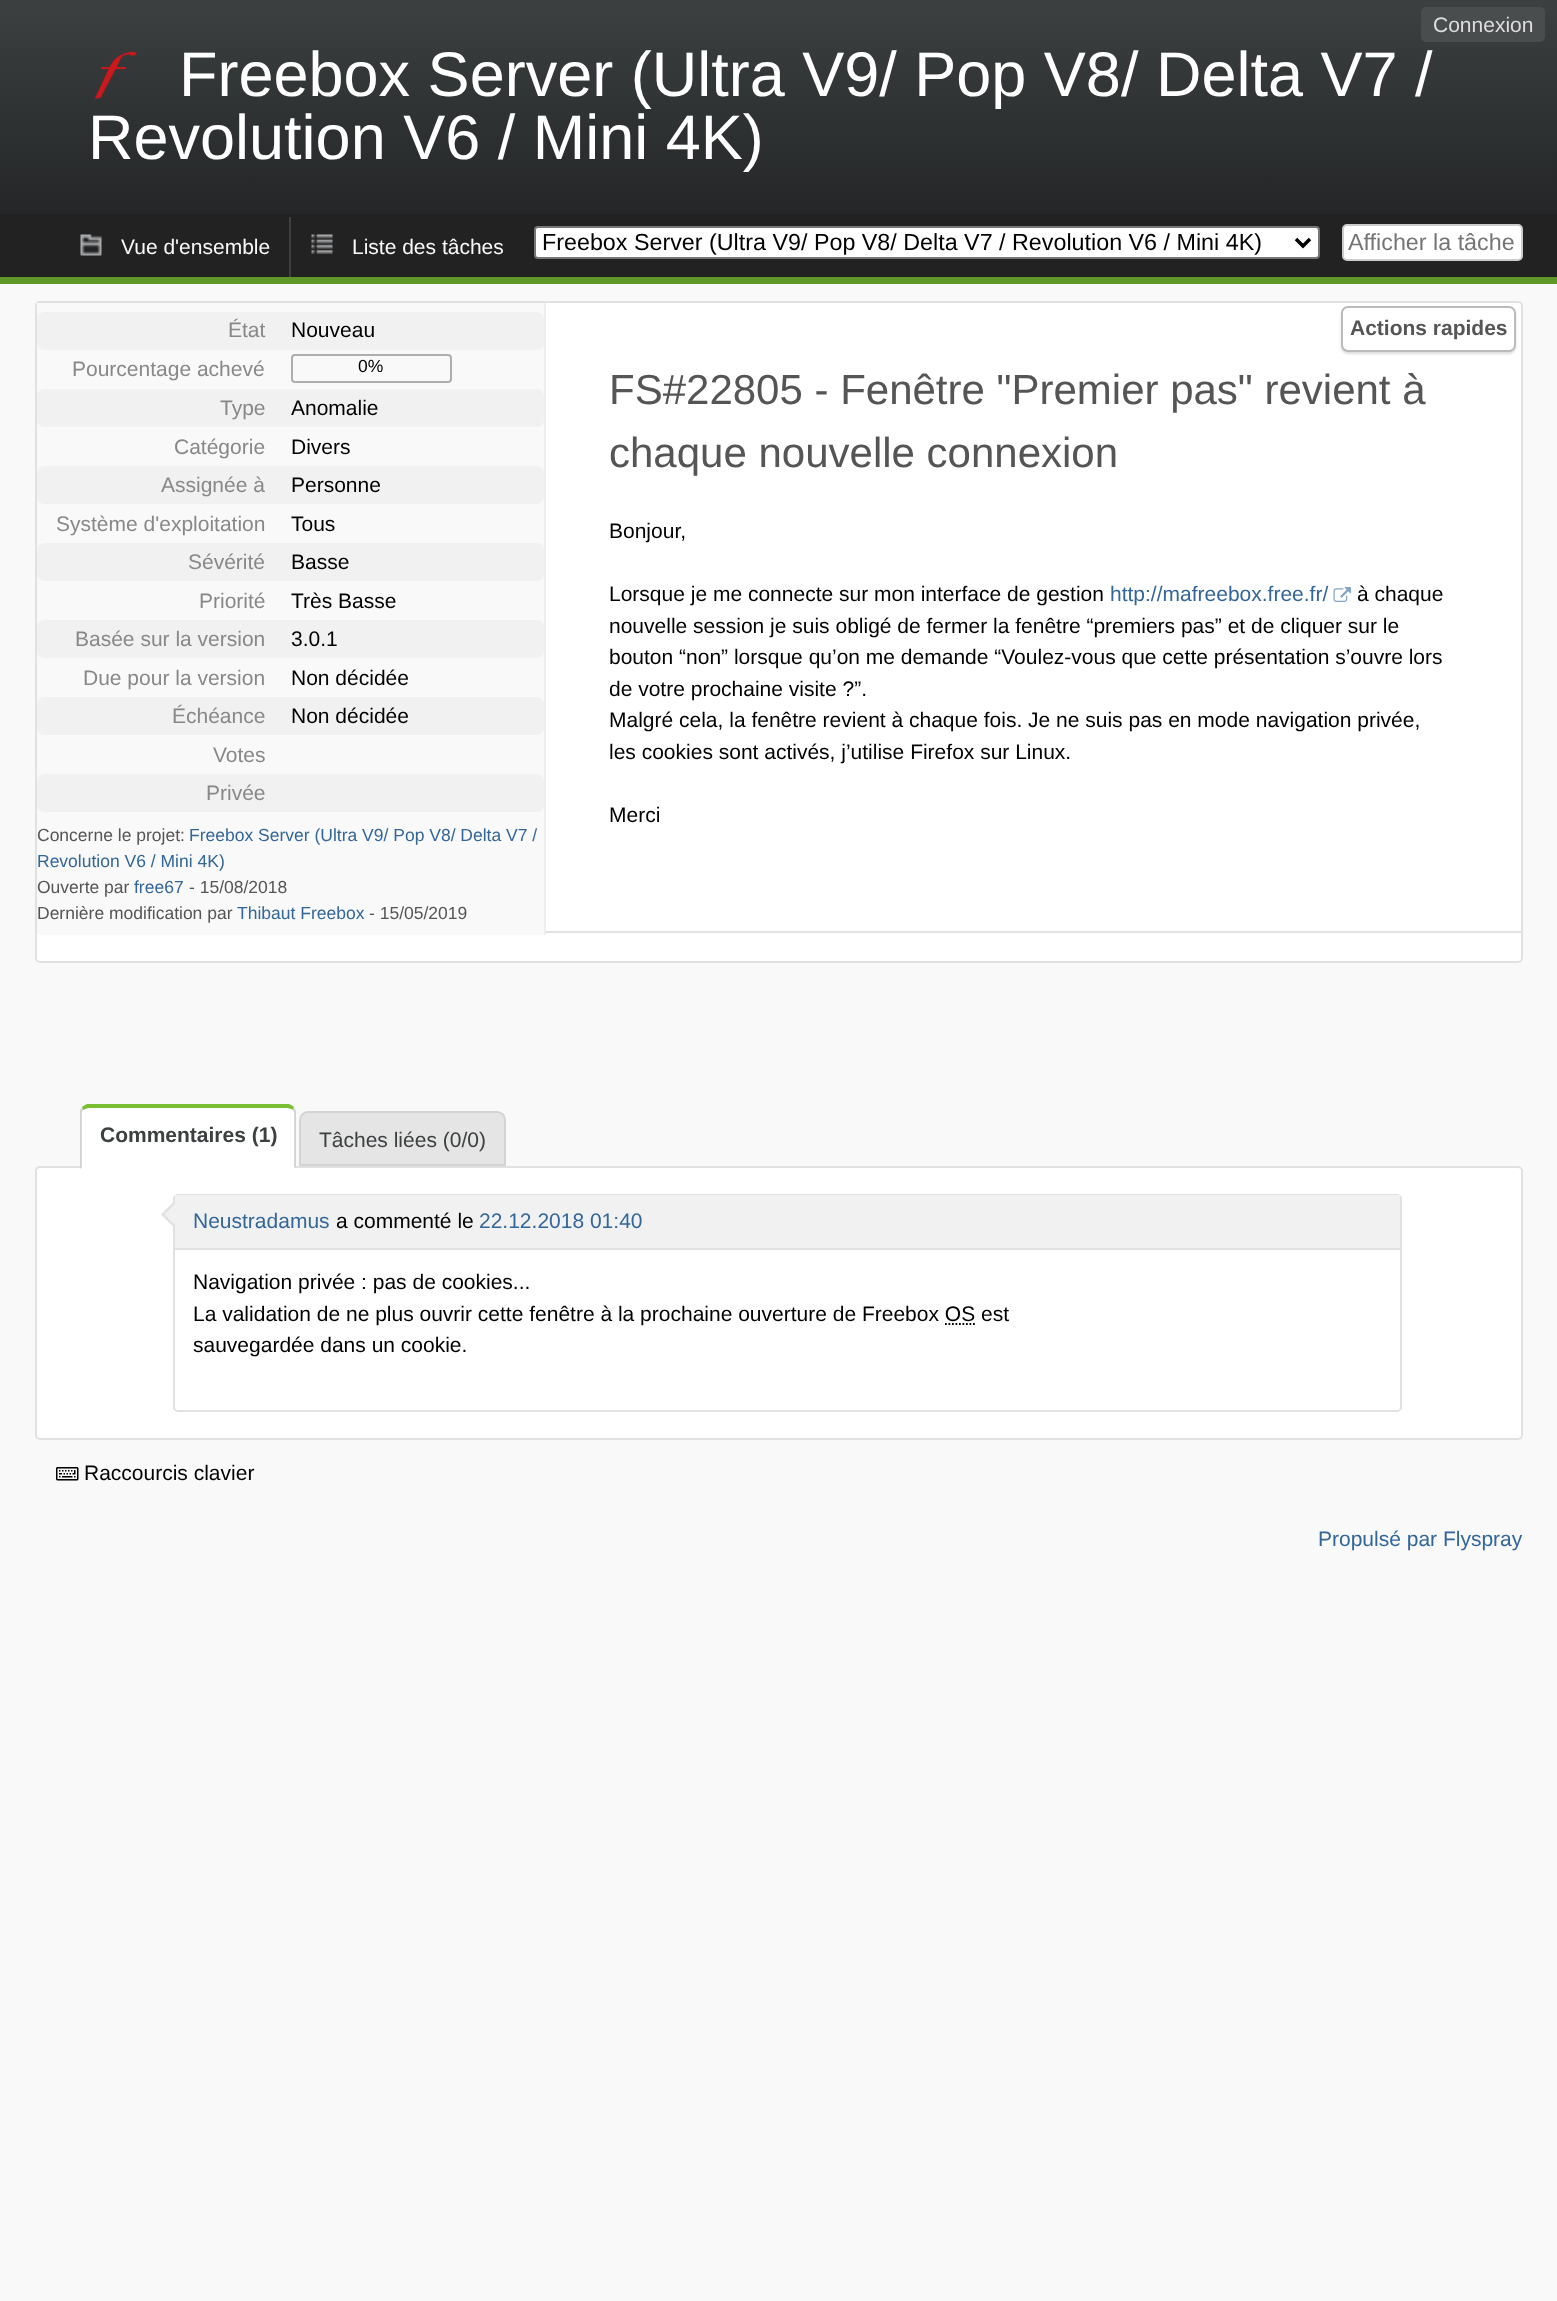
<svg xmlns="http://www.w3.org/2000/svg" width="1557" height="2301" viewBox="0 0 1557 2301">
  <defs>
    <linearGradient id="g1" gradientUnits="userSpaceOnUse" x1="779" y1="0" x2="779" y2="214"><stop offset="0" stop-color="#3c4041"/><stop offset="1" stop-color="#242627"/></linearGradient>
    <filter id="blur1" x="-50%" y="-200%" width="200%" height="500%"><feGaussianBlur stdDeviation="1"/></filter>
  </defs>
  <rect width="100%" height="100%" fill="#f9f9f9"/>
  <rect x="0" y="0" width="1557" height="214" fill="url(#g1)"/>
  <rect x="1421" y="7" width="124" height="35" rx="5" fill="#494d4e"/>
  <text x="1433" y="32" font-family="Liberation Sans" font-size="21" fill="#dddddd">Connexion</text>
  <image x="94" y="51" width="43" height="48" href="img1.png"/>
  <text x="179" y="96" font-family="Liberation Sans" font-size="63" fill="#ffffff">Freebox Server (Ultra V9/ Pop V8/ Delta V7 /</text>
  <text x="88" y="159" font-family="Liberation Sans" font-size="63" fill="#ffffff">Revolution V6 / Mini 4K)</text>
  <rect x="0" y="214" width="1557" height="63" fill="#222222"/>
  <rect x="0" y="277" width="1557" height="7" fill="#5f9729"/>
  <image x="80" y="234" width="22" height="22" href="img2.png"/>
  <text x="121" y="254" font-family="Liberation Sans" font-size="21" fill="#f9f9f9">Vue d'ensemble</text>
  <image x="311" y="234" width="22" height="20" href="img3.png"/>
  <rect x="289" y="217" width="2" height="60" fill="#3c4041"/>
  <text x="352" y="254" font-family="Liberation Sans" font-size="21" fill="#f9f9f9">Liste des tâches</text>
  <rect x="535" y="227" width="784" height="31" rx="3" fill="#ffffff" stroke="#767676" stroke-width="2"/>
  <path d="M1296 239L1303 246L1310 239" fill="none" stroke="#000000" stroke-width="3.5"/>
  <text x="542" y="250" font-family="Liberation Sans" font-size="23.3" fill="#000000">Freebox Server (Ultra V9/ Pop V8/ Delta V7 / Revolution V6 / Mini 4K)</text>
  <rect x="1343" y="225" width="179" height="35" rx="4" fill="#ffffff" stroke="#cccccc" stroke-width="2"/>
  <text x="1348" y="250" font-family="Liberation Sans" font-size="23.3" fill="#757575">Afficher la tâche</text>
  <rect x="36" y="302" width="1486" height="660" rx="4" fill="#ffffff" stroke="#e1e1e1" stroke-width="2"/>
  <rect x="37" y="303" width="507" height="632" fill="#f9f9f9"/>
  <rect x="544" y="303" width="2" height="632" fill="#eeeeee"/>
  <rect x="37" y="312" width="507" height="38" rx="7" fill="#f1f1f1"/>
  <text x="228" y="337" font-family="Liberation Sans" font-size="21" fill="#888888">État</text>
  <text x="291" y="337" font-family="Liberation Sans" font-size="21" fill="#000000">Nouveau</text>
  <text x="72" y="376" font-family="Liberation Sans" font-size="21" fill="#888888">Pourcentage achevé</text>
  <rect x="292" y="355" width="159" height="27" rx="3" fill="none" stroke="#aeaeae" stroke-width="2"/>
  <text x="358" y="372" font-family="Liberation Sans" font-size="17.5" fill="#000000">0%</text>
  <rect x="37" y="389" width="507" height="38" rx="7" fill="#f1f1f1"/>
  <text x="220" y="415" font-family="Liberation Sans" font-size="21" fill="#888888">Type</text>
  <text x="291" y="415" font-family="Liberation Sans" font-size="21" fill="#000000">Anomalie</text>
  <text x="174" y="454" font-family="Liberation Sans" font-size="21" fill="#888888">Catégorie</text>
  <text x="291" y="454" font-family="Liberation Sans" font-size="21" fill="#000000">Divers</text>
  <rect x="37" y="466" width="507" height="38" rx="7" fill="#f1f1f1"/>
  <text x="161" y="492" font-family="Liberation Sans" font-size="21" fill="#888888">Assignée à</text>
  <text x="291" y="492" font-family="Liberation Sans" font-size="21" fill="#000000">Personne</text>
  <text x="56" y="531" font-family="Liberation Sans" font-size="21" fill="#888888">Système d'exploitation</text>
  <text x="291" y="531" font-family="Liberation Sans" font-size="21" fill="#000000">Tous</text>
  <rect x="37" y="543" width="507" height="38" rx="7" fill="#f1f1f1"/>
  <text x="188" y="569" font-family="Liberation Sans" font-size="21" fill="#888888">Sévérité</text>
  <text x="291" y="569" font-family="Liberation Sans" font-size="21" fill="#000000">Basse</text>
  <text x="199" y="608" font-family="Liberation Sans" font-size="21" fill="#888888">Priorité</text>
  <text x="291" y="608" font-family="Liberation Sans" font-size="21" fill="#000000">Très Basse</text>
  <rect x="37" y="620" width="507" height="38" rx="7" fill="#f1f1f1"/>
  <text x="75" y="646" font-family="Liberation Sans" font-size="21" fill="#888888">Basée sur la version</text>
  <text x="291" y="646" font-family="Liberation Sans" font-size="21" fill="#000000">3.0.1</text>
  <text x="83" y="685" font-family="Liberation Sans" font-size="21" fill="#888888">Due pour la version</text>
  <text x="291" y="685" font-family="Liberation Sans" font-size="21" fill="#000000">Non décidée</text>
  <rect x="37" y="697" width="507" height="38" rx="7" fill="#f1f1f1"/>
  <text x="172" y="723" font-family="Liberation Sans" font-size="21" fill="#888888">Échéance</text>
  <text x="291" y="723" font-family="Liberation Sans" font-size="21" fill="#000000">Non décidée</text>
  <text x="213" y="762" font-family="Liberation Sans" font-size="21" fill="#888888">Votes</text>
  <rect x="37" y="774" width="507" height="38" rx="7" fill="#f1f1f1"/>
  <text x="206" y="800" font-family="Liberation Sans" font-size="21" fill="#888888">Privée</text>
  <text x="37" y="841" font-family="Liberation Sans" font-size="17.5" fill="#555555">Concerne le projet:</text>
  <text x="189" y="841" font-family="Liberation Sans" font-size="17.5" fill="#336699">Freebox Server (Ultra V9/ Pop V8/ Delta V7 /</text>
  <text x="37" y="867" font-family="Liberation Sans" font-size="17.5" fill="#336699">Revolution V6 / Mini 4K)</text>
  <text x="37" y="893" font-family="Liberation Sans" font-size="17.5" fill="#555555">Ouverte par</text>
  <text x="134" y="893" font-family="Liberation Sans" font-size="17.5" fill="#336699">free67</text>
  <text x="189" y="893" font-family="Liberation Sans" font-size="17.5" fill="#555555">- 15/08/2018</text>
  <text x="37" y="919" font-family="Liberation Sans" font-size="17.5" fill="#555555">Dernière modification par</text>
  <text x="237" y="919" font-family="Liberation Sans" font-size="17.5" fill="#336699">Thibaut Freebox</text>
  <text x="369" y="919" font-family="Liberation Sans" font-size="17.5" fill="#555555">- 15/05/2019</text>
  <text x="609" y="404" font-family="Liberation Sans" font-size="42" fill="#555555">FS#22805 - Fenêtre "Premier pas" revient à</text>
  <text x="609" y="467" font-family="Liberation Sans" font-size="42" fill="#555555">chaque nouvelle connexion</text>
  <text x="609" y="538" font-family="Liberation Sans" font-size="21" fill="#000000">Bonjour,</text>
  <text x="609" y="601" font-family="Liberation Sans" font-size="21" fill="#000000">Lorsque je me connecte sur mon interface de gestion</text>
  <text x="1110" y="601" font-family="Liberation Sans" font-size="21" fill="#336699">http://mafreebox.free.fr/</text>
  <image x="1333" y="587" width="18" height="15" href="img4.png"/>
  <text x="1357" y="601" font-family="Liberation Sans" font-size="21" fill="#000000">à chaque</text>
  <text x="609" y="633" font-family="Liberation Sans" font-size="21" fill="#000000">nouvelle session je suis obligé de fermer la fenêtre “premiers pas” et de cliquer sur le</text>
  <text x="609" y="664" font-family="Liberation Sans" font-size="21" fill="#000000">bouton “non” lorsque qu’on me demande “Voulez-vous que cette présentation s’ouvre lors</text>
  <text x="609" y="696" font-family="Liberation Sans" font-size="21" fill="#000000">de votre prochaine visite ?”.</text>
  <text x="609" y="727" font-family="Liberation Sans" font-size="21" fill="#000000">Malgré cela, la fenêtre revient à chaque fois. Je ne suis pas en mode navigation privée,</text>
  <text x="609" y="759" font-family="Liberation Sans" font-size="21" fill="#000000">les cookies sont activés, j’utilise Firefox sur Linux.</text>
  <text x="609" y="822" font-family="Liberation Sans" font-size="21" fill="#000000">Merci</text>
  <rect x="546" y="931" width="975" height="2" fill="#e1e1e1"/>
  <rect x="1341" y="308" width="175" height="46" rx="7" fill="#dddddd" filter="url(#blur1)"/>
  <rect x="1342" y="307" width="173" height="44" rx="6" fill="#ffffff" stroke="#bbbbbb" stroke-width="2"/>
  <text x="1350" y="335" font-family="Liberation Sans" font-size="21" font-weight="bold" fill="#555555">Actions rapides</text>
  <rect x="36" y="1167" width="1486" height="272" rx="4" fill="#ffffff" stroke="#e1e1e1" stroke-width="2"/>
  <path d="M89 1108H287C291 1108 294 1110 294 1113V1167H82V1113C82 1110 85 1108 89 1108Z" fill="#ffffff"/>
  <path d="M89 1108C87 1108 85 1109 83 1110L82 1107C83 1106 85 1105 87 1104H289C291 1105 293 1106 294 1107L293 1110C292 1109 289 1108 287 1108Z" fill="#78bf34"/>
  <path d="M296 1111V1169L294 1167V1113C294 1112 294 1111 293 1110L294 1107Z" fill="#d4d4d4"/>
  <path d="M296 1169L294 1167H82L80 1169Z" fill="#ffffff"/>
  <path d="M80 1169V1110L82 1107L83 1110L82 1112V1167Z" fill="#d4d4d4"/>
  <text x="100" y="1142" font-family="Liberation Sans" font-size="21" font-weight="bold" fill="#3c4041">Commentaires (1)</text>
  <path d="M308 1112H497C501.5 1112 505 1115.5 505 1120V1165H300V1120C300 1115.5 303.5 1112 308 1112Z" fill="#e5e5e5" stroke="#d4d4d4" stroke-width="2"/>
  <text x="319" y="1147" font-family="Liberation Sans" font-size="21" fill="#3c4041">Tâches liées (0/0)</text>
  <rect x="174" y="1195" width="1227" height="216" rx="4" fill="none" stroke="#e1e1e1" stroke-width="2"/>
  <path d="M175 1200.5V1228.5L161 1214.5Z" fill="#e1e1e1"/>
  <path d="M175 1204V1225L164.5 1214.5Z" fill="#f1f1f1"/>
  <rect x="175" y="1195" width="1225" height="53" fill="#f1f1f1"/>
  <rect x="175" y="1248" width="1225" height="2" fill="#e1e1e1"/>
  <text x="193" y="1228" font-family="Liberation Sans" font-size="21" fill="#336699">Neustradamus</text>
  <text x="336" y="1228" font-family="Liberation Sans" font-size="21" fill="#000000">a commenté le</text>
  <text x="479" y="1228" font-family="Liberation Sans" font-size="21" fill="#336699">22.12.2018 01:40</text>
  <text x="193" y="1289" font-family="Liberation Sans" font-size="21" fill="#000000">Navigation privée : pas de cookies...</text>
  <text x="193" y="1321" font-family="Liberation Sans" font-size="21" fill="#000000">La validation de ne plus ouvrir cette fenêtre à la prochaine ouverture de Freebox OS est</text>
  <path d="M945 1324H975.5" fill="none" stroke="#000000" stroke-width="1.8" stroke-dasharray="1.75 1.75"/>
  <text x="193" y="1352" font-family="Liberation Sans" font-size="21" fill="#000000">sauvegardée dans un cookie.</text>
  <image x="56" y="1467" width="23" height="14" href="img5.png"/>
  <text x="84" y="1480" font-family="Liberation Sans" font-size="21" fill="#000000">Raccourcis clavier</text>
  <text x="1318" y="1546" font-family="Liberation Sans" font-size="21" fill="#336699">Propulsé par Flyspray</text>
</svg>
